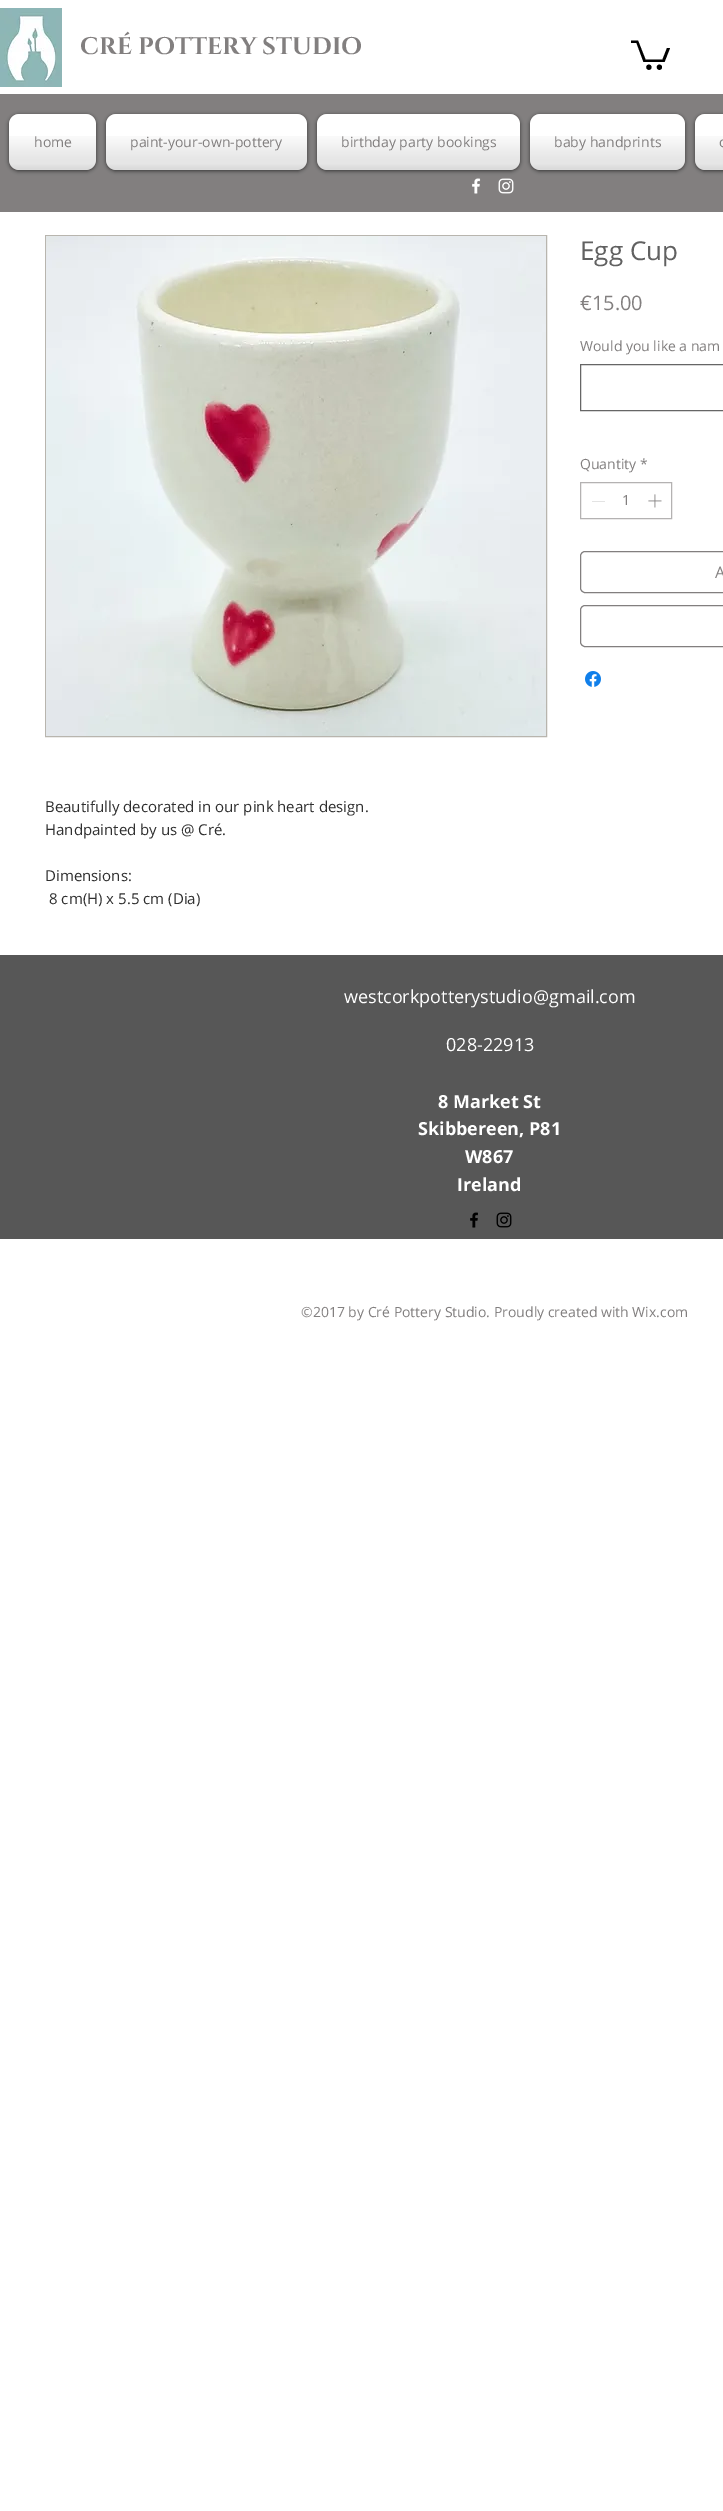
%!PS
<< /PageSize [723 2511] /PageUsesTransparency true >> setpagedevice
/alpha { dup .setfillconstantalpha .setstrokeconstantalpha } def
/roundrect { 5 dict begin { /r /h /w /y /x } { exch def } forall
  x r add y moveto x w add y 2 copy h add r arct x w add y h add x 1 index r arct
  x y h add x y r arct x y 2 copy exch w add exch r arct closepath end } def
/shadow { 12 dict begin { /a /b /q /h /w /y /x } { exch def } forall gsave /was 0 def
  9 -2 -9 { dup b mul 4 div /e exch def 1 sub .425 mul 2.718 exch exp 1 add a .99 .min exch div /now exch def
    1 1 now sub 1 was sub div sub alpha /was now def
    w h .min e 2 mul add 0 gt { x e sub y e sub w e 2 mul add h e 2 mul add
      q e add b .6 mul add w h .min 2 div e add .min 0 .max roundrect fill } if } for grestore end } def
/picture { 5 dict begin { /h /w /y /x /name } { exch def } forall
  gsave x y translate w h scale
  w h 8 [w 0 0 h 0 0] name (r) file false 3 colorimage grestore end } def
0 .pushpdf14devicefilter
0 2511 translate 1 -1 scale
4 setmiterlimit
1 setgray
0 0 723 2511 rectfill
(img1.rgb) 0 8 62 79 picture
/Cinzel-Bold [24 0 0 -24 0 0] selectfont
0.51 0.498 0.498 setrgbcolor
80 54 moveto (CRÉ POTTERY STUDIO) show
0 setgray
newpath 670 48 moveto 664.5 62 lineto 643.5 62 lineto 636.5 43 lineto 631 43 lineto 631 40.5 lineto 638 40.5 lineto 645.5 59.5 lineto 662.5 59.5 lineto 667 48 lineto fill
newpath 659.4 67.2 2.6 0 360 arc closepath fill
newpath 648.9 67.2 2.6 0 360 arc closepath fill
0.51 0.498 0.498 setrgbcolor
0 94 723 118 rectfill
0 setgray
9 115 87 56 10 2 0.6 shadow
1 setgray
9 114 87 56 10 roundrect fill
(img2.rgb) 9 114 87 9 picture
(img3.rgb) 9 136 87 34 picture
/OpenSans-Regular [14 0 0 -14 0 0] selectfont
0.51 0.498 0.498 setrgbcolor
34 147 moveto (home) show
0 setgray
106 115 201 56 10 2 0.6 shadow
1 setgray
106 114 201 56 10 roundrect fill
(img4.rgb) 106 114 201 9 picture
(img5.rgb) 106 136 201 34 picture
0.51 0.498 0.498 setrgbcolor
130 147 moveto (paint-your-own-pottery) show
0 setgray
317 115 203 56 10 2 0.6 shadow
1 setgray
317 114 203 56 10 roundrect fill
(img6.rgb) 317 114 203 9 picture
(img7.rgb) 317 136 203 34 picture
0.51 0.498 0.498 setrgbcolor
341 147 moveto (birthday party bookings) show
0 setgray
530 115 155 56 10 2 0.6 shadow
1 setgray
530 114 155 56 10 roundrect fill
(img8.rgb) 530 114 155 9 picture
(img9.rgb) 530 136 155 34 picture
0.51 0.498 0.498 setrgbcolor
554 147 moveto (baby handprints) show
0 setgray
695 115 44 56 10 2 0.6 shadow
1 setgray
695 114 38 56 10 roundrect fill
(img10.rgb) 695 114 9 9 picture
(img11.rgb) 695 136 28 34 picture
0.51 0.498 0.498 setrgbcolor
719 147 moveto (c) show
(img12.rgb) 472 178 9 16 picture
(img13.rgb) 498 178 16 16 picture
/OpenSans-Regular [26 0 0 -26 0 0] selectfont
0.38 setgray
580 260 moveto (Egg Cup) show
/OpenSans-Regular [20 0 0 -20 0 0] selectfont
0.51 0.498 0.498 setrgbcolor
580 310 moveto (€15.00) show
/OpenSans-Regular [14 0 0 -14 0 0] selectfont
580 351 moveto (Would you like a nam) show
0.4 setgray
580.5 364.5 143 46 rectstroke
0.51 0.498 0.498 setrgbcolor
580 469 moveto (Quantity) show
640 469 moveto (*) show
0.706 0.698 0.698 setrgbcolor
580.5 482.5 91 36 rectstroke
0.89 setgray
592 501 13 1 rectfill
0.51 0.498 0.498 setrgbcolor
622 505 moveto (1) show
(img14.rgb) 648 494 14 14 picture
580.5 551.5 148 41 4.5 roundrect stroke
/OpenSans-Regular [16 0 0 -16 0 0] selectfont
715 578 moveto (A) show
580.5 605.5 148 41 4.5 roundrect stroke
(img15.rgb) 585 671 16 16 picture
0.722 0.71 0.682 setrgbcolor
45.5 235.5 501 501 rectstroke
(img16.rgb) 46 236 500 500 picture
/OpenSans-Regular [15 0 0 -15 0 0] selectfont
0.188 setgray
45 812 moveto (Beautifully decorated in our pink heart design.) show
45 835 moveto (Handpainted by us @ Cré.) show
45 881 moveto (Dimensions:) show
49 904 moveto (8 cm\(H\) x 5.5 cm \(Dia\)) show
0.341 setgray
0 955 723 284 rectfill
/OpenSans-Regular [18 0 0 -18 0 0] selectfont
1 setgray
344 1003 moveto (westcorkpotterystudio@gmail.com) show
446 1051 moveto (028-22913) show
/OpenSans-Bold [18 0 0 -18 0 0] selectfont
438 1108 moveto (8 Market St) show
418 1135 moveto (Skibbereen, P81) show
465 1163 moveto (W867) show
457 1191 moveto (Ireland) show
(img17.rgb) 470 1212 8 16 picture
(img18.rgb) 496 1212 16 16 picture
/OpenSans-Regular [14 0 0 -14 0 0] selectfont
0.51 0.498 0.498 setrgbcolor
301 1317 moveto (©2017 by Cré Pottery Studio. Proudly created with Wix.com) show
.poppdf14devicefilter showpage
